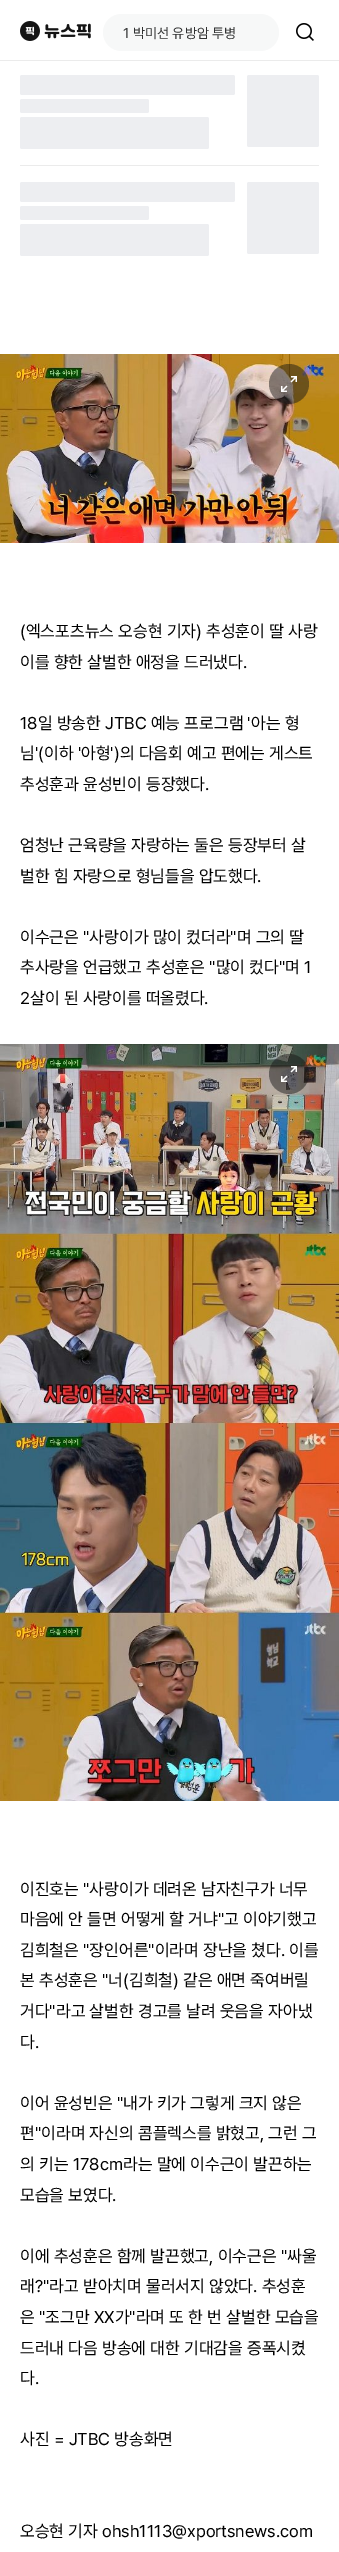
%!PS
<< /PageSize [339 2552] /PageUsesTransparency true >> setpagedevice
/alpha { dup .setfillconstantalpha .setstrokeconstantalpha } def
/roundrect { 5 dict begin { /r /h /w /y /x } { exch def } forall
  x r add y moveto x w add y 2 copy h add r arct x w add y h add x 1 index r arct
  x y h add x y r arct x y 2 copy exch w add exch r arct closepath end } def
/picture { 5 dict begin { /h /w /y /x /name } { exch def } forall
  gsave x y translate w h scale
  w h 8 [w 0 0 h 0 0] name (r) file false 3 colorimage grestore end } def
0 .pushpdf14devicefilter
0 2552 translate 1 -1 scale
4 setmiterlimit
1 setgray
0 0 339 2552 rectfill
0.922 setgray
0 60 339 1 rectfill
(img1.rgb) 20 21 71 20 picture
0.969 0.973 0.973 setrgbcolor
103 14 176 37 18.5 roundrect fill
/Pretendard-Regular [14 0 0 -14 0 0] selectfont
0.192 0.196 0.196 setrgbcolor
123 38 moveto (1 박미선 유방암 투병) show
(img2.rgb) 296 23 18 18 picture
0.929 0.933 0.945 setrgbcolor
20 75 215 20 2 roundrect fill
20 99 129 14 2 roundrect fill
20 117 189 32 2 roundrect fill
247 75 72 72 2 roundrect fill
0.922 setgray
20 165 299 1 rectfill
0.929 0.933 0.945 setrgbcolor
20 182 215 20 2 roundrect fill
20 206 129 14 2 roundrect fill
20 224 189 32 2 roundrect fill
247 182 72 72 2 roundrect fill
(img3.rgb) 0 354 339 189 picture
0.48 alpha
0.078 setgray
newpath 289 384 20 0 360 arc closepath fill
1 alpha
(img4.rgb) 281 376 16 16 picture
/Pretendard-Regular [17 0 0 -17 0 0] selectfont
0 setgray
20 637 moveto (\(엑스포츠뉴스 오승현 기자\) 추성훈이 딸 사랑) show
20 668 moveto (이를 향한 살벌한 애정을 드러냈다.) show
20 729 moveto (18일 방송한 JTBC 예능 프로그램 '아는 형) show
20 759 moveto (님'\(이하 '아형'\)의 다음회 예고 편에는 게스트) show
20 790 moveto (추성훈과 윤성빈이 등장했다.) show
20 851 moveto (엄청난 근육량을 자랑하는 둘은 등장부터 살) show
20 882 moveto (벌한 힘 자랑으로 형님들을 압도했다.) show
20 943 moveto (이수근은 "사랑이가 많이 컸더라"며 그의 딸) show
20 973 moveto (추사랑을 언급했고 추성훈은 "많이 컸다"며 1) show
20 1004 moveto (2살이 된 사랑이를 떠올렸다.) show
(img5.rgb) 0 1044 339 757 picture
0.48 alpha
0.078 setgray
newpath 289 1074 20 0 360 arc closepath fill
1 alpha
(img6.rgb) 281 1066 16 16 picture
0 setgray
20 1895 moveto (이진호는 "사랑이가 데려온 남자친구가 너무) show
20 1925 moveto (마음에 안 들면 어떻게 할 거냐"고 이야기했고) show
20 1956 moveto (김희철은 "장인어른"이라며 장난을 쳤다. 이를) show
20 1986 moveto (본 추성훈은 "너\(김희철\) 같은 애면 죽여버릴) show
20 2017 moveto (거다"라고 살벌한 경고를 날려 웃음을 자아냈) show
20 2048 moveto (다.) show
20 2109 moveto (이어 윤성빈은 "내가 키가 그렇게 크지 않은) show
20 2139 moveto (편"이라며 자신의 콤플렉스를 밝혔고, 그런 그) show
20 2170 moveto (의 키는 178cm라는 말에 이수근이 발끈하는) show
20 2201 moveto (모습을 보였다.) show
20 2262 moveto (이에 추성훈은 함께 발끈했고, 이수근은 "싸울) show
20 2292 moveto (래?"라고 받아치며 물러서지 않았다. 추성훈) show
20 2323 moveto (은 "조그만 XX가"라며 또 한 번 살벌한 모습을) show
20 2354 moveto (드러내 다음 방송에 대한 기대감을 증폭시켰) show
20 2384 moveto (다.) show
20 2445 moveto (사진 = JTBC 방송화면) show
20 2537 moveto (오승현 기자 ohsh1113@xportsnews.com) show
.poppdf14devicefilter showpage
